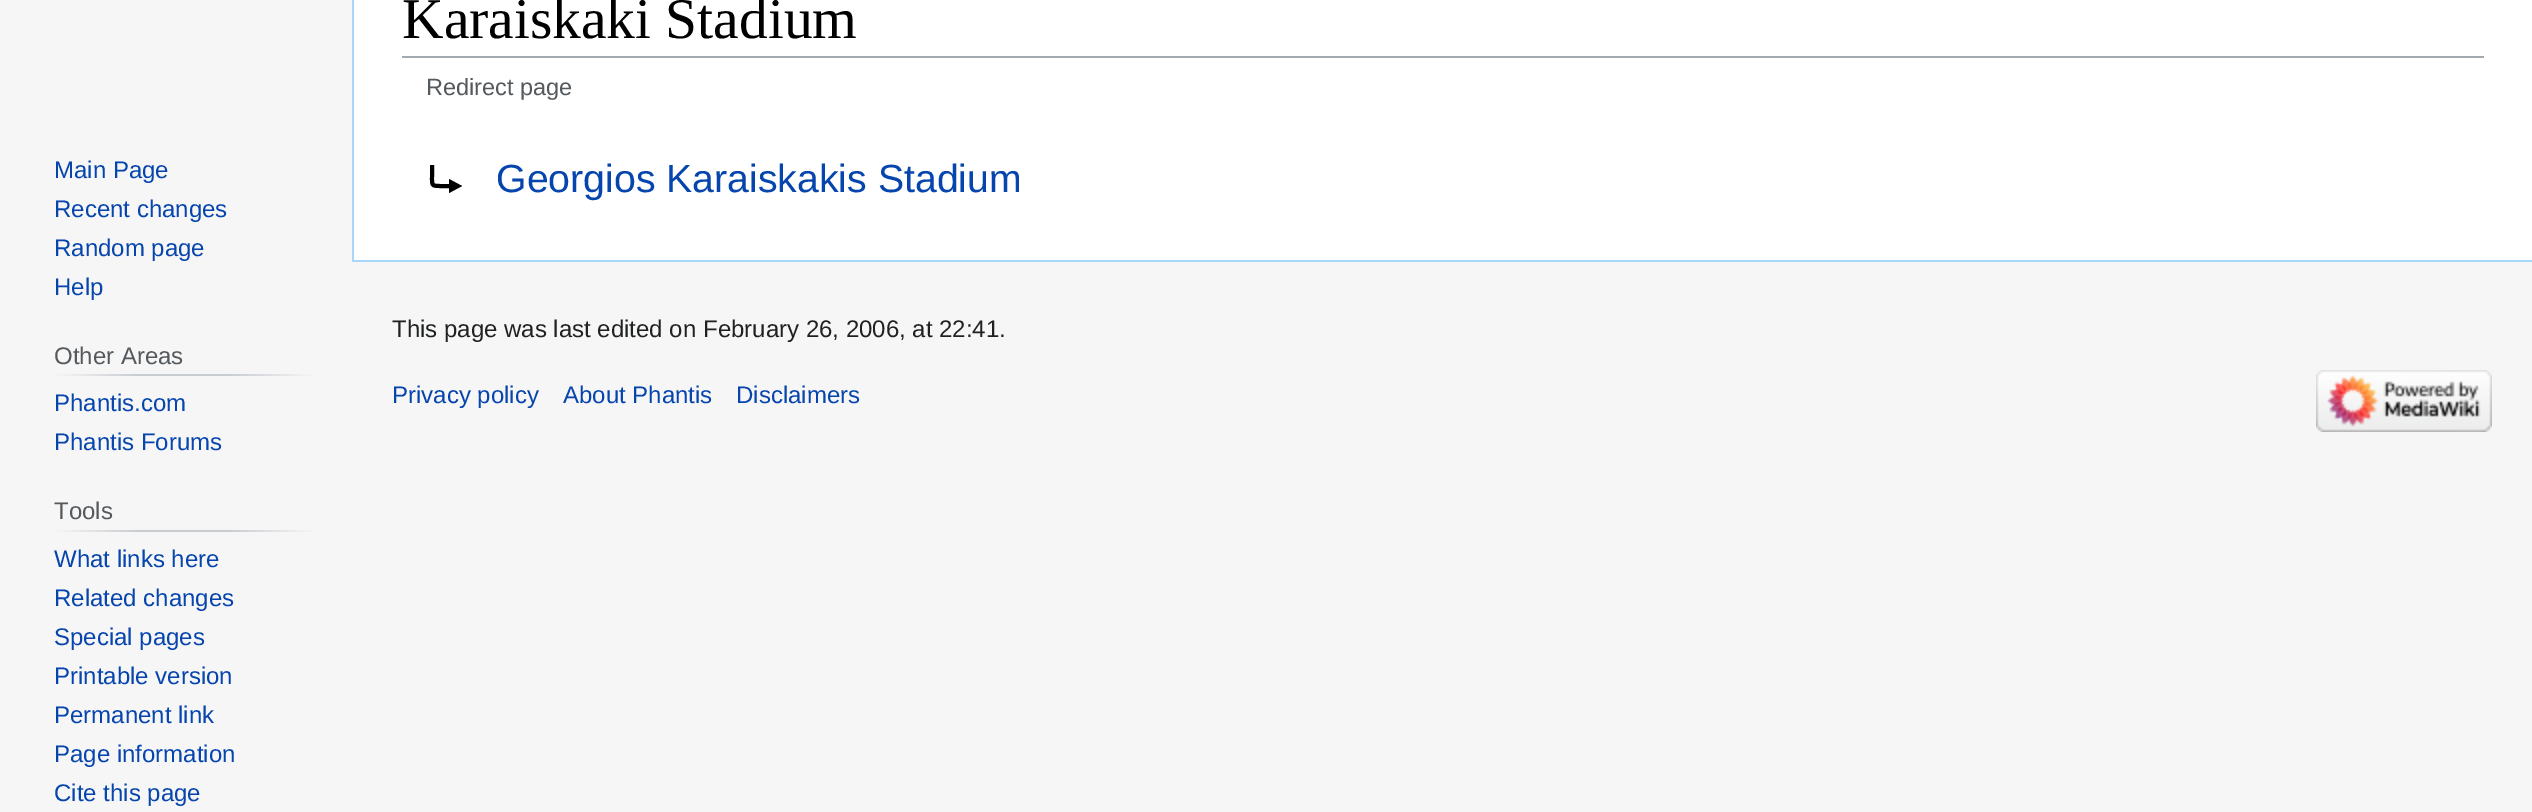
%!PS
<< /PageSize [2532 812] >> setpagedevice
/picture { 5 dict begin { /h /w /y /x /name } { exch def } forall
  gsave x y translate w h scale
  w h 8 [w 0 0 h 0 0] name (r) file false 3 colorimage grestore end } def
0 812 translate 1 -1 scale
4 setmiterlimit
0.965 setgray
0 0 2532 812 rectfill
1 setgray
354 0 2178 260 rectfill
0.655 0.843 0.976 setrgbcolor
352 260 2180 2 rectfill
352 0 2 262 rectfill
0.635 0.663 0.694 setrgbcolor
402 56 2082 2 rectfill
/LiberationSerif-Regular [57.5 0 0 -57.5 0 0] selectfont
0 setgray
402 38 moveto (Karaiskaki Stadium) show
/LiberationSans-Regular [23.5 0 0 -23.5 0 0] selectfont
0.329 0.349 0.365 setrgbcolor
426 95 moveto (Redirect page) show
/LiberationSans-Regular [39.25 0 0 -39.25 0 0] selectfont
0.024 0.271 0.678 setrgbcolor
496 192 moveto (Georgios Karaiskakis Stadium) show
0 setgray
4 setlinewidth
newpath 432 165 moveto 432 176.5 lineto 432 185 431.5 186 440 186 curveto 454 186 lineto stroke
newpath 449 179 moveto 449 193 lineto 462 186 lineto closepath fill
/LiberationSans-Regular [24 0 0 -24 0 0] selectfont
0.024 0.271 0.678 setrgbcolor
54 178 moveto (Main Page) show
54 217 moveto (Recent changes) show
54 256 moveto (Random page) show
54 295 moveto (Help) show
gsave newpath 54 374 moveto 316 374 lineto 316 376 lineto 54 376 lineto closepath clip newpath
<< /ShadingType 2 /ColorSpace /DeviceRGB /Coords [54 375 316 375] /Extend [true true] /Function << /FunctionType 3 /Domain [0 1] /Functions [<< /FunctionType 2 /Domain [0 1] /C0 [0.965 0.965 0.965] /C1 [0.784 0.8 0.82] /N 1 >> << /FunctionType 2 /Domain [0 1] /C0 [0.784 0.8 0.82] /C1 [0.784 0.8 0.82] /N 1 >> << /FunctionType 2 /Domain [0 1] /C0 [0.784 0.8 0.82] /C1 [0.965 0.965 0.965] /N 1 >>] /Bounds [0.33 0.66] /Encode [0 1 0 1 0 1] >> >> shfill grestore
0.329 0.349 0.365 setrgbcolor
54 364 moveto (Other Areas) show
0.024 0.271 0.678 setrgbcolor
54 411 moveto (Phantis.com) show
54 450 moveto (Phantis Forums) show
gsave newpath 54 530 moveto 316 530 lineto 316 532 lineto 54 532 lineto closepath clip newpath
<< /ShadingType 2 /ColorSpace /DeviceRGB /Coords [54 531 316 531] /Extend [true true] /Function << /FunctionType 3 /Domain [0 1] /Functions [<< /FunctionType 2 /Domain [0 1] /C0 [0.965 0.965 0.965] /C1 [0.784 0.8 0.82] /N 1 >> << /FunctionType 2 /Domain [0 1] /C0 [0.784 0.8 0.82] /C1 [0.784 0.8 0.82] /N 1 >> << /FunctionType 2 /Domain [0 1] /C0 [0.784 0.8 0.82] /C1 [0.965 0.965 0.965] /N 1 >>] /Bounds [0.33 0.66] /Encode [0 1 0 1 0 1] >> >> shfill grestore
0.329 0.349 0.365 setrgbcolor
54 519 moveto (Tools) show
0.024 0.271 0.678 setrgbcolor
54 567 moveto (What links here) show
54 606 moveto (Related changes) show
54 645 moveto (Special pages) show
54 684 moveto (Printable version) show
54 723 moveto (Permanent link) show
54 762 moveto (Page information) show
54 801 moveto (Cite this page) show
0.125 0.129 0.133 setrgbcolor
392 337 moveto (This page was last edited on February 26, 2006, at 22:41.) show
0.024 0.271 0.678 setrgbcolor
392 403 moveto (Privacy policy) show
563 403 moveto (About Phantis) show
736 403 moveto (Disclaimers) show
(img1.rgb) 2316 370 176 62 picture
showpage
